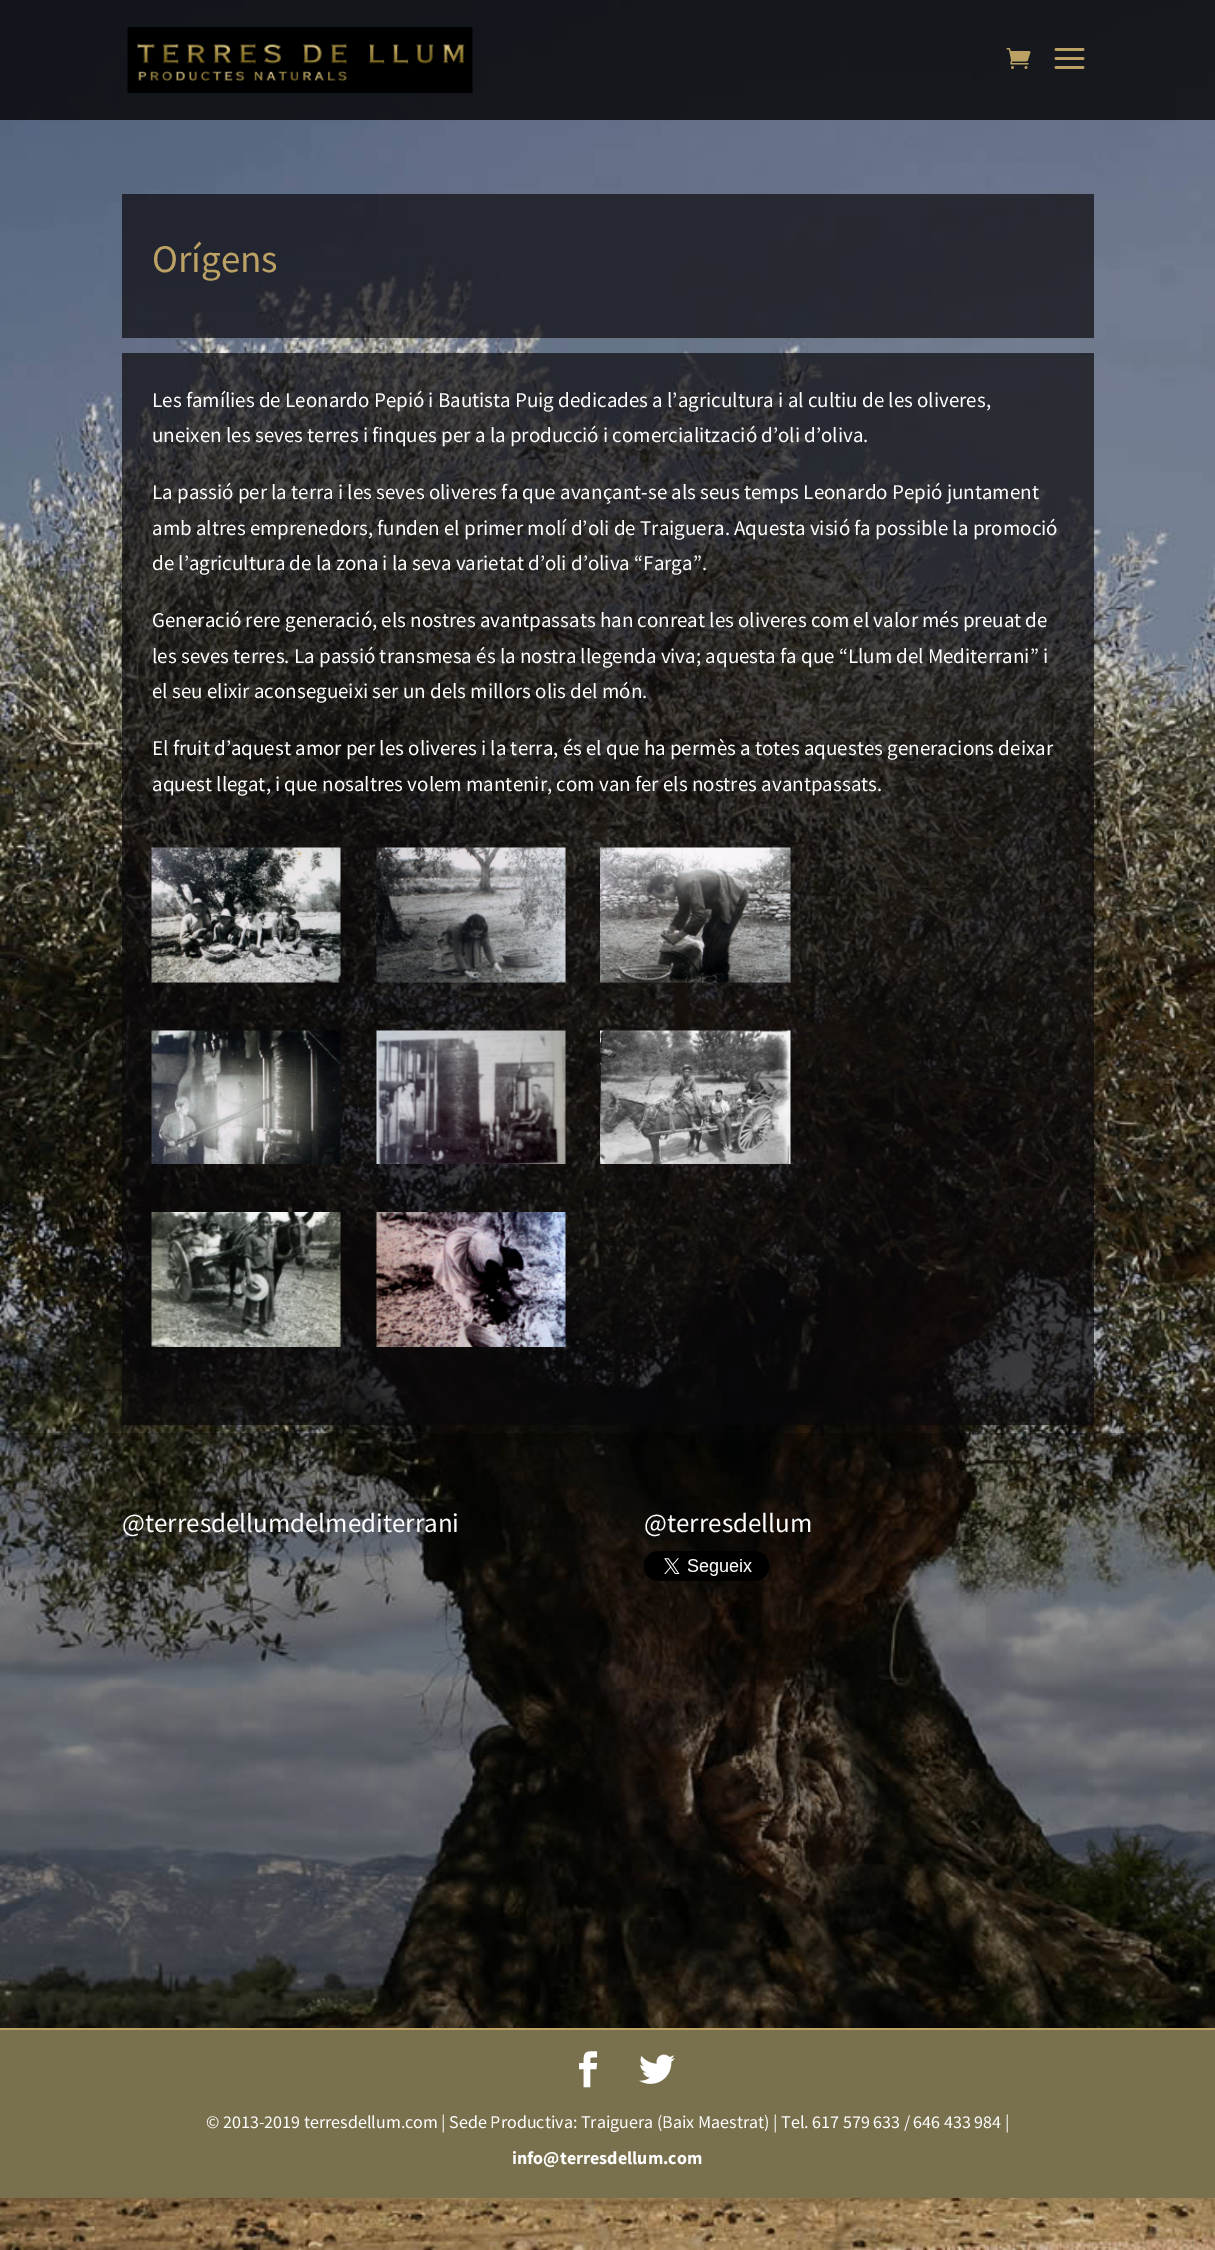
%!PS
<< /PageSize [1215 2250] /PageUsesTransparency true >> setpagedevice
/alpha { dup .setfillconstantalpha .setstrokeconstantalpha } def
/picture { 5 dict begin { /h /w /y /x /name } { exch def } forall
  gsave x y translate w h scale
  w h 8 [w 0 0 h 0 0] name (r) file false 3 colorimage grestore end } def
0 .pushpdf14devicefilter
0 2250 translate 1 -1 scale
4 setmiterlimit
1 setgray
0 0 1215 2250 rectfill
(img1.rgb) 0 0 1215 2250 picture
0.79 alpha
0 setgray
0 0 1215 120 rectfill
1 alpha
(img2.rgb) 127 27 346 66 picture
(img3.rgb) 1006 48 25 21 picture
(img4.rgb) 1054 48 31 21 picture
0.69 alpha
0.035 0.027 0.039 setrgbcolor
122 194 972 144 rectfill
/SourceSansPro-Regular [39 0 0 -39 0 0] selectfont
1 alpha
0.737 0.631 0.396 setrgbcolor
152 272 moveto (Orígens) show
0.69 alpha
0.035 0.027 0.039 setrgbcolor
122 353 972 1072 rectfill
/SourceSansPro-Regular [21 0 0 -21 0 0] selectfont
1 alpha
1 setgray
152 407 moveto (Les famílies de Leonardo Pepió i Bautista Puig dedicades a l’agricultura i al cultiu de les oliveres,) show
152 442 moveto (uneixen les seves terres i finques per a la producció i comercialització d’oli d’oliva.) show
152 499 moveto (La passió per la terra i les seves oliveres fa que avançant-se als seus temps Leonardo Pepió juntament) show
152 535 moveto (amb altres emprenedors, funden el primer molí d’oli de Traiguera. Aquesta visió fa possible la promoció) show
152 570 moveto (de l’agricultura de la zona i la seva varietat d’oli d’oliva “Farga”.) show
152 627 moveto (Generació rere generació, els nostres avantpassats han conreat les oliveres com el valor més preuat de) show
152 663 moveto (les seves terres. La passió transmesa és la nostra llegenda viva; aquesta fa que “Llum del Mediterrani” i) show
152 698 moveto (el seu elixir aconsegueixi ser un dels millors olis del món.) show
152 755 moveto (El fruit d’aquest amor per les oliveres i la terra, és el que ha permès a totes aquestes generacions deixar) show
152 791 moveto (aquest llegat, i que nosaltres volem mantenir, com van fer els nostres avantpassats.) show
(img5.rgb) 151 847 190 136 picture
(img6.rgb) 376 847 190 136 picture
(img7.rgb) 600 847 191 136 picture
(img8.rgb) 151 1030 190 134 picture
(img9.rgb) 376 1030 190 134 picture
(img10.rgb) 600 1030 191 134 picture
(img11.rgb) 151 1212 190 135 picture
(img12.rgb) 376 1212 190 135 picture
0.3 alpha
0 setgray
0 1433 1215 595 rectfill
/SourceSansPro-Regular [27 0 0 -27 0 0] selectfont
1 alpha
1 setgray
122 1532 moveto (@terresdellumdelmediterrani) show
644 1532 moveto (@terresdellum) show
(img13.rgb) 644 1551 126 30 picture
0.475 0.443 0.302 setrgbcolor
0 2030 1215 168 rectfill
0.737 0.631 0.396 setrgbcolor
0 2028 1215 2 rectfill
(img14.rgb) 579 2051 19 37 picture
(img15.rgb) 639 2054 36 30 picture
/SourceSansPro-Regular [18 0 0 -18 0 0] selectfont
1 setgray
206 2128 moveto (© 2013-2019 terresdellum.com | Sede Productiva: Traiguera \(Baix Maestrat\) | Tel. 617 579 633 / 646 433 984 |) show
/SourceSansPro-Bold [18 0 0 -18 0 0] selectfont
512 2164 moveto (info@terresdellum.com) show
.poppdf14devicefilter showpage
